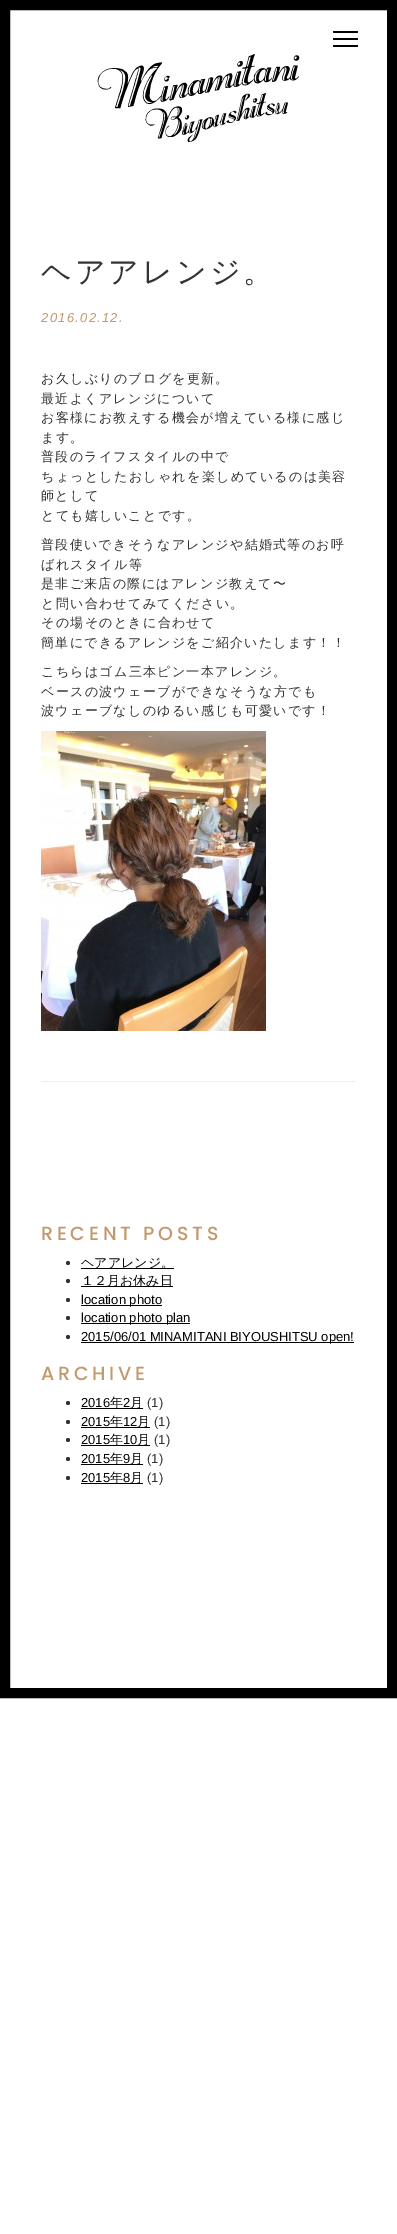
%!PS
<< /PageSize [397 2234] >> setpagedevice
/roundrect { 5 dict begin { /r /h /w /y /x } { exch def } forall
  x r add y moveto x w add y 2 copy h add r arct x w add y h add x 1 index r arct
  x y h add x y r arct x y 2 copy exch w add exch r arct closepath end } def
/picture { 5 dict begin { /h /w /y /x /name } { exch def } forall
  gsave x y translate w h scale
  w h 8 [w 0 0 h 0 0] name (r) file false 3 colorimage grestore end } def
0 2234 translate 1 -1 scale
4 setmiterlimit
1 setgray
0 0 397 2234 rectfill
0 setgray
10 setlinewidth
5 5 387 1688 rectstroke
333 31 25 2 1 roundrect fill
333 38 25 2 1 roundrect fill
333 45 25 2 1 roundrect fill
(img1.rgb) 97 54 203 88 picture
0.933 setgray
41 1081 315 1 rectfill
/WenQuanYiZenHei-Medium [30 0 0 -30 0 0] selectfont
0.2 setgray
41 282 moveto 3 0 (ヘアアレンジ。) ashow
/LiberationSans-Italic [13 0 0 -13 0 0] selectfont
0.765 0.6 0.42 setrgbcolor
41 322 moveto 1.3 0 (2016.02.12.) ashow
/WenQuanYiZenHei-Medium [13 0 0 -13 0 0] selectfont
0.2 setgray
41 383 moveto 1.3 0 (お久しぶりのブログを更新。) ashow
41 403 moveto 1.3 0 (最近よくアレンジについて) ashow
41 422 moveto 1.3 0 (お客様にお教えする機会が増えている様に感じ) ashow
41 442 moveto 1.3 0 (ます。) ashow
41 461 moveto 1.3 0 (普段のライフスタイルの中で) ashow
41 481 moveto 1.3 0 (ちょっとしたおしゃれを楽しめているのは美容) ashow
41 500 moveto 1.3 0 (師として) ashow
41 520 moveto 1.3 0 (とても嬉しいことです。) ashow
41 549 moveto 1.3 0 (普段使いできそうなアレンジや結婚式等のお呼) ashow
41 569 moveto 1.3 0 (ばれスタイル等) ashow
41 588 moveto 1.3 0 (是非ご来店の際にはアレンジ教えて〜) ashow
41 608 moveto 1.3 0 (と問い合わせてみてください。) ashow
41 627 moveto 1.3 0 (その場そのときに合わせて) ashow
41 647 moveto 1.3 0 (簡単にできるアレンジをご紹介いたします！！) ashow
41 676 moveto 1.3 0 (こちらはゴム三本ピン一本アレンジ。) ashow
41 696 moveto 1.3 0 (ベースの波ウェーブができなそうな方でも) ashow
41 715 moveto 1.3 0 (波ウェーブなしのゆるい感じも可愛いです！) ashow
(img2.rgb) 41 731 225 300 picture
/Poppins-Medium [19 0 0 -19 0 0] selectfont
0.765 0.6 0.42 setrgbcolor
41 1240 moveto 3.75 0 (RECENT POSTS) ashow
0.2 setgray
newpath 68 1263 2 0 360 arc closepath fill
0 setgray
81 1268 93 1 rectfill
/WenQuanYiZenHei-Medium [13 0 0 -13 0 0] selectfont
81 1267 moveto (ヘアアレンジ。) show
0.2 setgray
newpath 68 1281 2 0 360 arc closepath fill
0 setgray
81 1286 92 1 rectfill
81 1285 moveto (１２月お休み日) show
0.2 setgray
newpath 68 1300 2 0 360 arc closepath fill
0 setgray
81 1305 81 1 rectfill
/LiberationSans-Regular [13 0 0 -13 0 0] selectfont
81 1304 moveto (location photo) show
0.2 setgray
newpath 68 1318 2 0 360 arc closepath fill
0 setgray
81 1323 109 1 rectfill
81 1322 moveto (location photo plan) show
0.2 setgray
newpath 68 1337 2 0 360 arc closepath fill
0 setgray
81 1342 273 1 rectfill
81 1341 moveto (2015/06/01 MINAMITANI BIYOUSHITSU open!) show
/Poppins-Medium [19 0 0 -19 0 0] selectfont
0.765 0.6 0.42 setrgbcolor
41 1380 moveto 3.75 0 (ARCHIVE) ashow
0.2 setgray
newpath 68 1403 2 0 360 arc closepath fill
/LiberationSans-Regular [13 0 0 -13 0 0] selectfont
0 setgray
81 1407 moveto (2016) show
81 1408 62 1 rectfill
/WenQuanYiZenHei-Medium [13 0 0 -13 0 0] selectfont
110 1407 moveto (年) show
/LiberationSans-Regular [13 0 0 -13 0 0] selectfont
123 1407 moveto (2) show
/WenQuanYiZenHei-Medium [13 0 0 -13 0 0] selectfont
130 1407 moveto (月) show
/LiberationSans-Regular [13 0 0 -13 0 0] selectfont
0.2 setgray
147 1407 moveto (\(1\)) show
newpath 68 1422 2 0 360 arc closepath fill
0 setgray
81 1426 moveto (2015) show
81 1427 69 1 rectfill
/WenQuanYiZenHei-Medium [13 0 0 -13 0 0] selectfont
110 1426 moveto (年) show
/LiberationSans-Regular [13 0 0 -13 0 0] selectfont
123 1426 moveto (12) show
/WenQuanYiZenHei-Medium [13 0 0 -13 0 0] selectfont
137 1426 moveto (月) show
/LiberationSans-Regular [13 0 0 -13 0 0] selectfont
0.2 setgray
154 1426 moveto (\(1\)) show
newpath 68 1440 2 0 360 arc closepath fill
0 setgray
81 1444 moveto (2015) show
81 1445 69 1 rectfill
/WenQuanYiZenHei-Medium [13 0 0 -13 0 0] selectfont
110 1444 moveto (年) show
/LiberationSans-Regular [13 0 0 -13 0 0] selectfont
123 1444 moveto (10) show
/WenQuanYiZenHei-Medium [13 0 0 -13 0 0] selectfont
137 1444 moveto (月) show
/LiberationSans-Regular [13 0 0 -13 0 0] selectfont
0.2 setgray
154 1444 moveto (\(1\)) show
newpath 68 1459 2 0 360 arc closepath fill
0 setgray
81 1463 moveto (2015) show
81 1464 62 1 rectfill
/WenQuanYiZenHei-Medium [13 0 0 -13 0 0] selectfont
110 1463 moveto (年) show
/LiberationSans-Regular [13 0 0 -13 0 0] selectfont
123 1463 moveto (9) show
/WenQuanYiZenHei-Medium [13 0 0 -13 0 0] selectfont
130 1463 moveto (月) show
/LiberationSans-Regular [13 0 0 -13 0 0] selectfont
0.2 setgray
147 1463 moveto (\(1\)) show
newpath 68 1478 2 0 360 arc closepath fill
0 setgray
81 1482 moveto (2015) show
81 1483 62 1 rectfill
/WenQuanYiZenHei-Medium [13 0 0 -13 0 0] selectfont
110 1482 moveto (年) show
/LiberationSans-Regular [13 0 0 -13 0 0] selectfont
123 1482 moveto (8) show
/WenQuanYiZenHei-Medium [13 0 0 -13 0 0] selectfont
130 1482 moveto (月) show
/LiberationSans-Regular [13 0 0 -13 0 0] selectfont
0.2 setgray
147 1482 moveto (\(1\)) show
showpage
